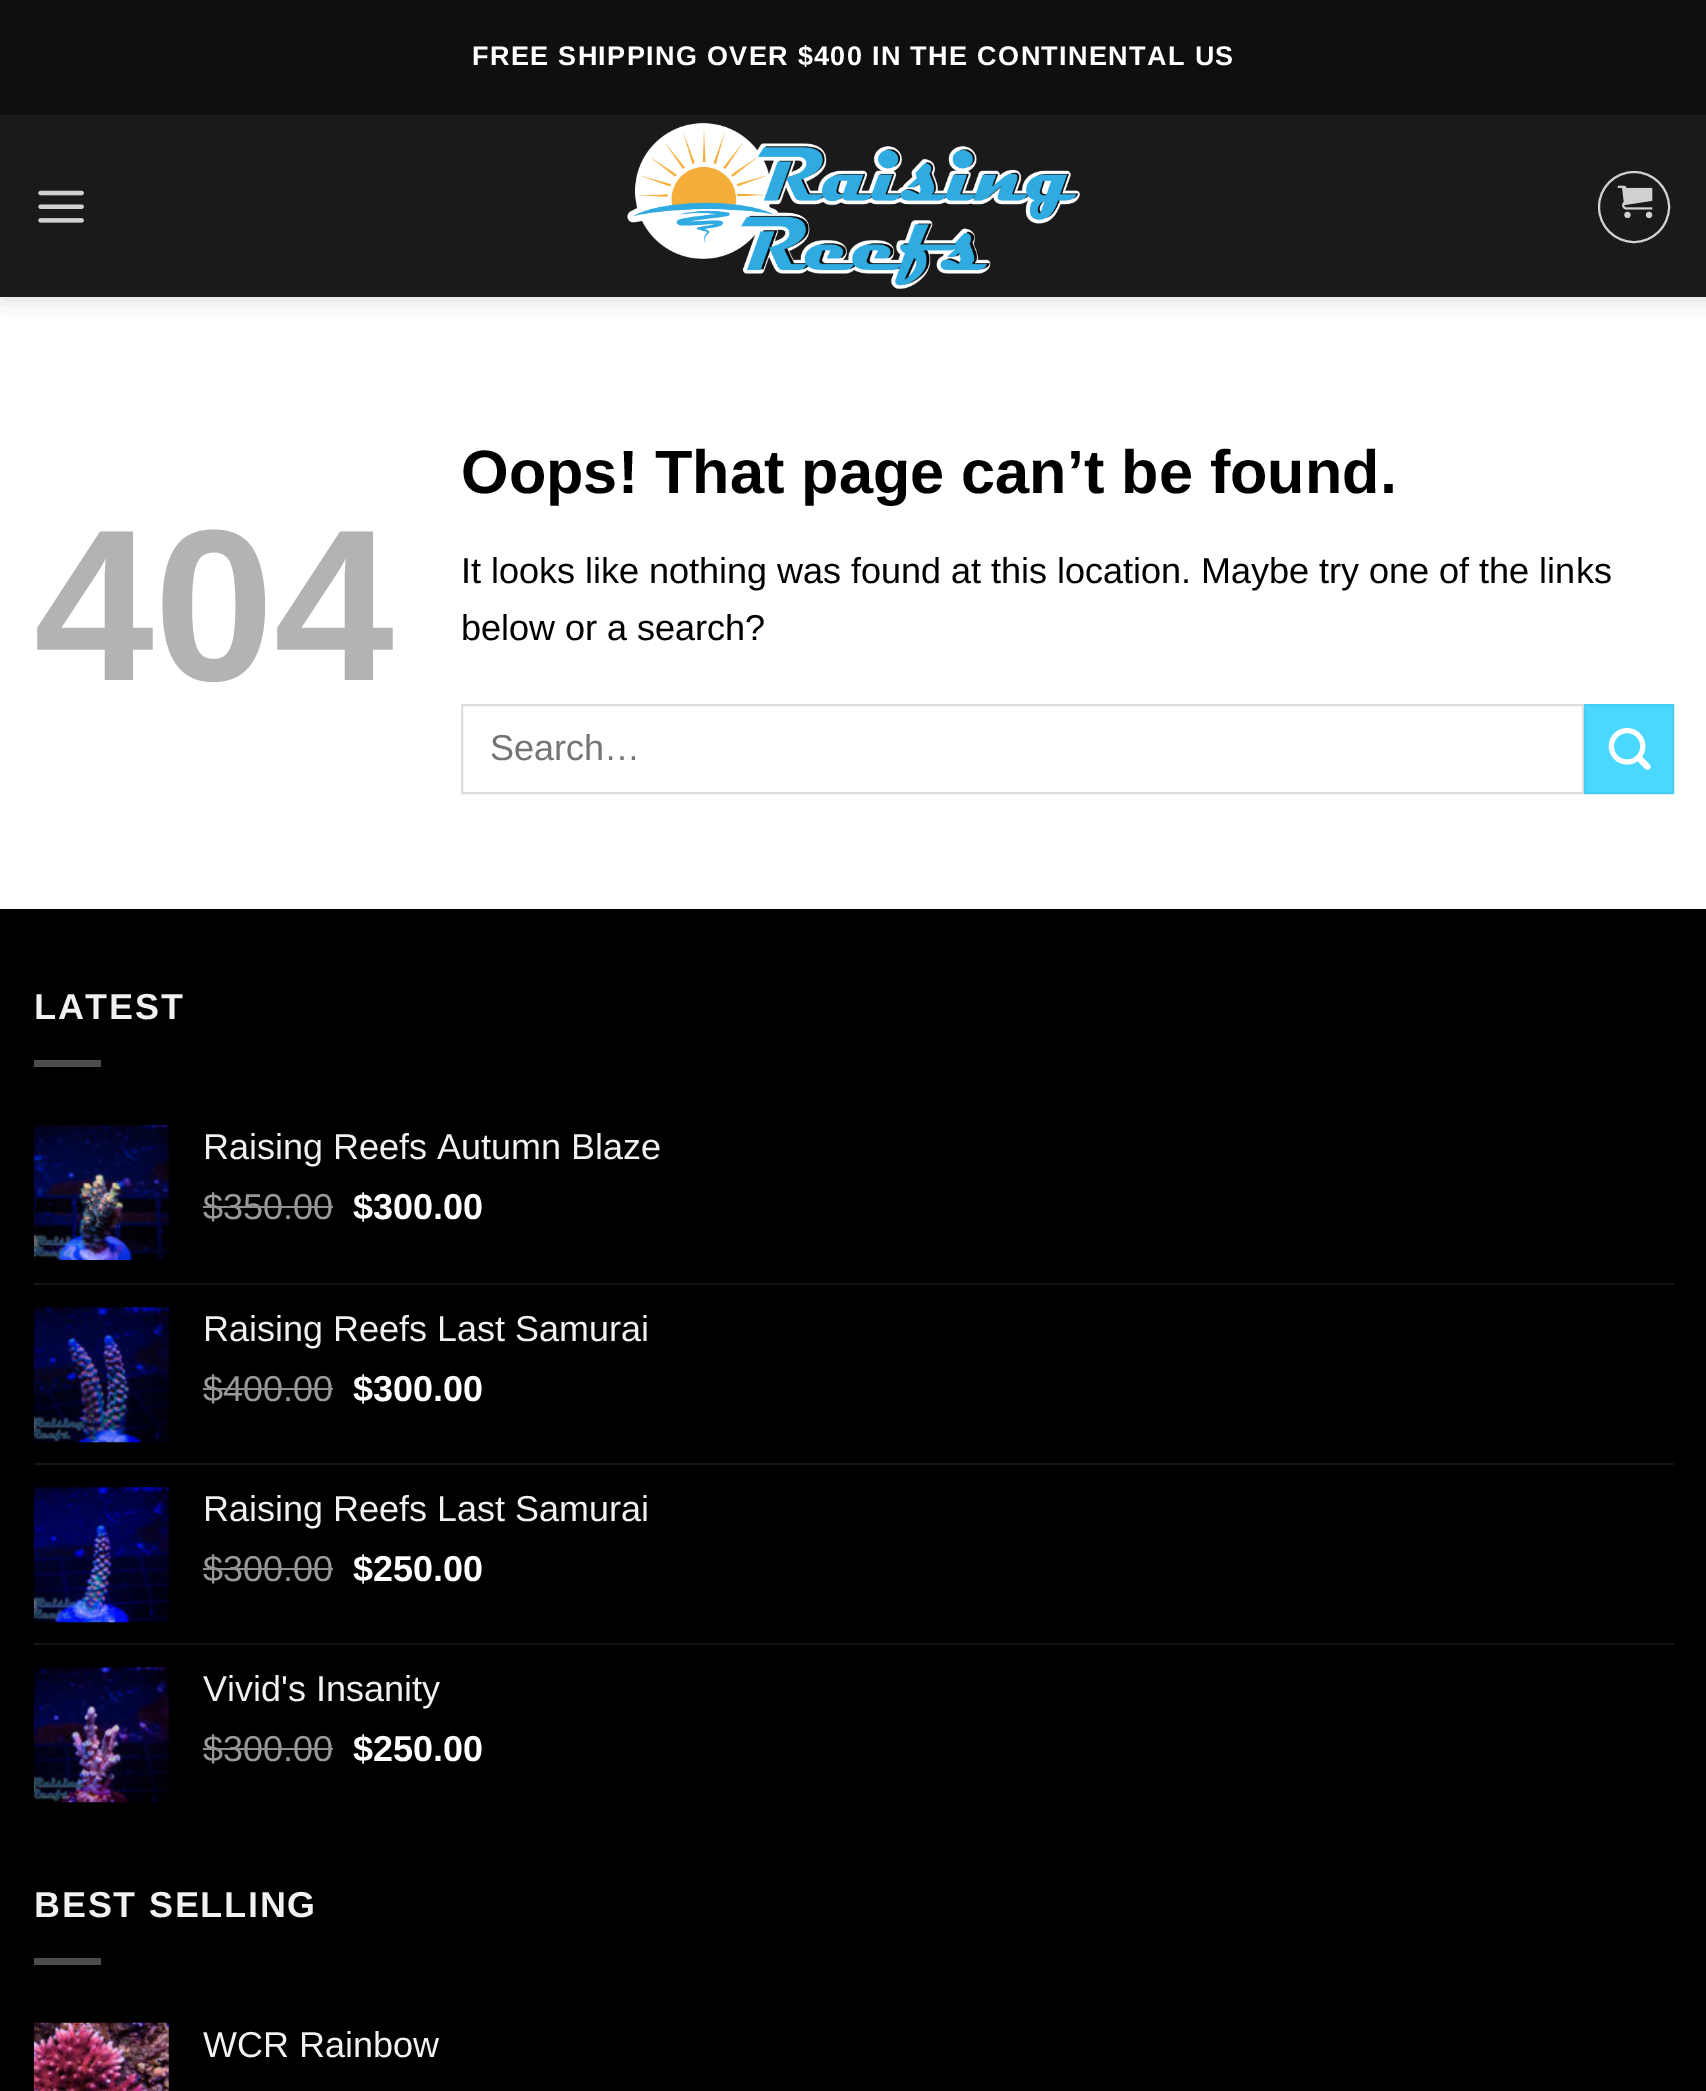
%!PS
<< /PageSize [1706 2091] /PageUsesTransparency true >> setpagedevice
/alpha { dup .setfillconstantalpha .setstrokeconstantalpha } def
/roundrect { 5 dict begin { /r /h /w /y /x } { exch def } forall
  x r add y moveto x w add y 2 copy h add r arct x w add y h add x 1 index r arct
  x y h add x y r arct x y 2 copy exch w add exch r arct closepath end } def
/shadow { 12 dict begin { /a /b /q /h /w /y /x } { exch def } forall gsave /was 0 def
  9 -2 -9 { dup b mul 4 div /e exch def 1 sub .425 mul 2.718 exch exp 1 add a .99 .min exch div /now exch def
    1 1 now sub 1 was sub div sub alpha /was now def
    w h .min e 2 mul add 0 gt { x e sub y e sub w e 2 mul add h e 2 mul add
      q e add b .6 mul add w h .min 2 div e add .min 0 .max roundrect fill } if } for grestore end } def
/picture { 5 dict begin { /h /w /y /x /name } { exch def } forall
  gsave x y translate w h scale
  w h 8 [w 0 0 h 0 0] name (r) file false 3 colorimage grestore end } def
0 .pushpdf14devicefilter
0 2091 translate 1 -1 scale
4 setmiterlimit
1 setgray
0 0 1706 2091 rectfill
0 setgray
2 2 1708 297 0 11 0.15 shadow
0.059 setgray
0 0 1706 115 rectfill
/LiberationSans-Bold [27 0 0 -27 0 0] selectfont
1 setgray
472 65 moveto 1.35 0 (FREE SHIPPING OVER $400 IN THE CONTINENTAL US) ashow
0.102 setgray
0 115 1706 182 rectfill
(img1.rgb) 38 190 46 33 picture
(img2.rgb) 627 122 453 167 picture
0.82 setgray
2 setlinewidth
newpath 1634 207 35 0 360 arc closepath stroke
(img3.rgb) 1617 185 36 34 picture
/LiberationSans-Bold [216 0 0 -216 0 0] selectfont
0.702 setgray
34 680 moveto (404) show
/LiberationSans-Bold [61.25 0 0 -61.25 0 0] selectfont
0 setgray
461 493 moveto (Oops! That page can’t be found.) show
/LiberationSans-Regular [36 0 0 -36 0 0] selectfont
461 583 moveto (It looks like nothing was found at this location. Maybe try one of the links) show
461 640 moveto (below or a search?) show
0.867 setgray
462 705 1121 88 rectstroke
0.459 setgray
490 760 moveto (Search…) show
0.29 0.847 1 setrgbcolor
newpath 1585 705 moveto 1673 705 lineto 1673 793 lineto 1585 793 lineto closepath gsave fill grestore
0.275 0.804 0.949 setrgbcolor
stroke
(img4.rgb) 1608 728 43 42 picture
0 setgray
0 909 1706 1182 rectfill
/LiberationSans-Bold [36 0 0 -36 0 0] selectfont
0.945 setgray
34 1019 moveto 1.75 0 (LATEST) ashow
0.302 setgray
34 1060 67 7 rectfill
(img5.rgb) 33 1125 136 135 picture
/LiberationSans-Regular [36 0 0 -36 0 0] selectfont
0.945 setgray
203 1159 moveto (Raising Reefs Autumn Blaze) show
0.6 setgray
203 1219 moveto ($350.00) show
0.569 setgray
203 1206 130 2 rectfill
/LiberationSans-Bold [36 0 0 -36 0 0] selectfont
1 setgray
353 1219 moveto ($300.00) show
0.078 setgray
34 1283 1640 2 rectfill
(img6.rgb) 33 1307 136 136 picture
/LiberationSans-Regular [36 0 0 -36 0 0] selectfont
0.945 setgray
203 1341 moveto (Raising Reefs Last Samurai) show
0.6 setgray
203 1401 moveto ($400.00) show
0.569 setgray
203 1388 130 2 rectfill
/LiberationSans-Bold [36 0 0 -36 0 0] selectfont
1 setgray
353 1401 moveto ($300.00) show
0.078 setgray
34 1463 1640 2 rectfill
(img7.rgb) 33 1487 136 136 picture
/LiberationSans-Regular [36 0 0 -36 0 0] selectfont
0.945 setgray
203 1521 moveto (Raising Reefs Last Samurai) show
0.6 setgray
203 1581 moveto ($300.00) show
0.569 setgray
203 1568 130 2 rectfill
/LiberationSans-Bold [36 0 0 -36 0 0] selectfont
1 setgray
353 1581 moveto ($250.00) show
0.078 setgray
34 1643 1640 2 rectfill
(img8.rgb) 33 1667 136 136 picture
/LiberationSans-Regular [36 0 0 -36 0 0] selectfont
0.945 setgray
203 1701 moveto (Vivid's Insanity) show
0.6 setgray
203 1761 moveto ($300.00) show
0.569 setgray
203 1748 130 2 rectfill
/LiberationSans-Bold [36 0 0 -36 0 0] selectfont
1 setgray
353 1761 moveto ($250.00) show
0.945 setgray
34 1917 moveto 1.75 0 (BEST SELLING) ashow
0.302 setgray
34 1958 67 7 rectfill
(img9.rgb) 33 2022 136 69 picture
/LiberationSans-Regular [36 0 0 -36 0 0] selectfont
0.945 setgray
203 2057 moveto (WCR Rainbow) show
.poppdf14devicefilter showpage
